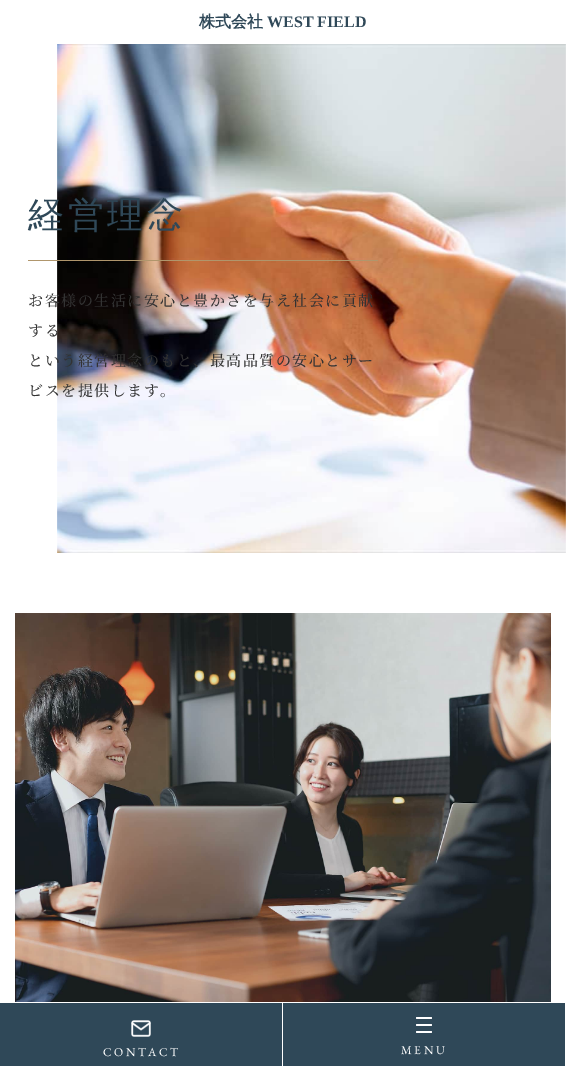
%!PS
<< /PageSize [566 1066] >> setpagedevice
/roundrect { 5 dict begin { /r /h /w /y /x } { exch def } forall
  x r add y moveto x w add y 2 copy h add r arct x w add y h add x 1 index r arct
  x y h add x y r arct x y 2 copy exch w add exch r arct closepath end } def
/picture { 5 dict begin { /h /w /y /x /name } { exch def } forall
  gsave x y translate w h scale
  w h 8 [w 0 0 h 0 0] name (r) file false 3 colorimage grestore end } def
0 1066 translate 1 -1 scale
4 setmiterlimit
1 setgray
0 0 566 1066 rectfill
/WenQuanYiZenHei-Bold [16 0 0 -16 0 0] selectfont
0.184 0.282 0.345 setrgbcolor
199 27 moveto (株式会社) show
/LiberationSerif-Bold [16 0 0 -16 0 0] selectfont
267 27 moveto (WEST FIELD) show
0 1003 282 63 rectfill
(img1.rgb) 131 1020 20 17 picture
/EBGaramond-Regular [12 0 0 -12 0 0] selectfont
1 setgray
103 1056 moveto 2.5 0 (CONTACT) ashow
0.184 0.282 0.345 setrgbcolor
283 1003 282 63 rectfill
1 setgray
416 1017 16 2 1 roundrect fill
416 1024 16 2 1 roundrect fill
416 1031 16 2 1 roundrect fill
401 1054 moveto 2.5 0 (MENU) ashow
(img2.rgb) 57 44 509 509 picture
/WenQuanYiZenHei-Medium [36 0 0 -36 0 0] selectfont
0.184 0.282 0.345 setrgbcolor
28 227 moveto 3.5 0 (経営理念) ashow
0.69 0.588 0.424 setrgbcolor
28 260 350 1 rectfill
/NotoSerifJP-Medium [15 0 0 -15 0 0] selectfont
0.2 setgray
28 306 moveto 1.5 0 (お客様の生活に安心と豊かさを与え社会に貢献) ashow
28 336 moveto 1.5 0 (する) ashow
28 366 moveto 1.5 0 (という経営理念のもと、最高品質の安心とサー) ashow
28 396 moveto 1.5 0 (ビスを提供します。) ashow
(img3.rgb) 15 613 536 389 picture
showpage
